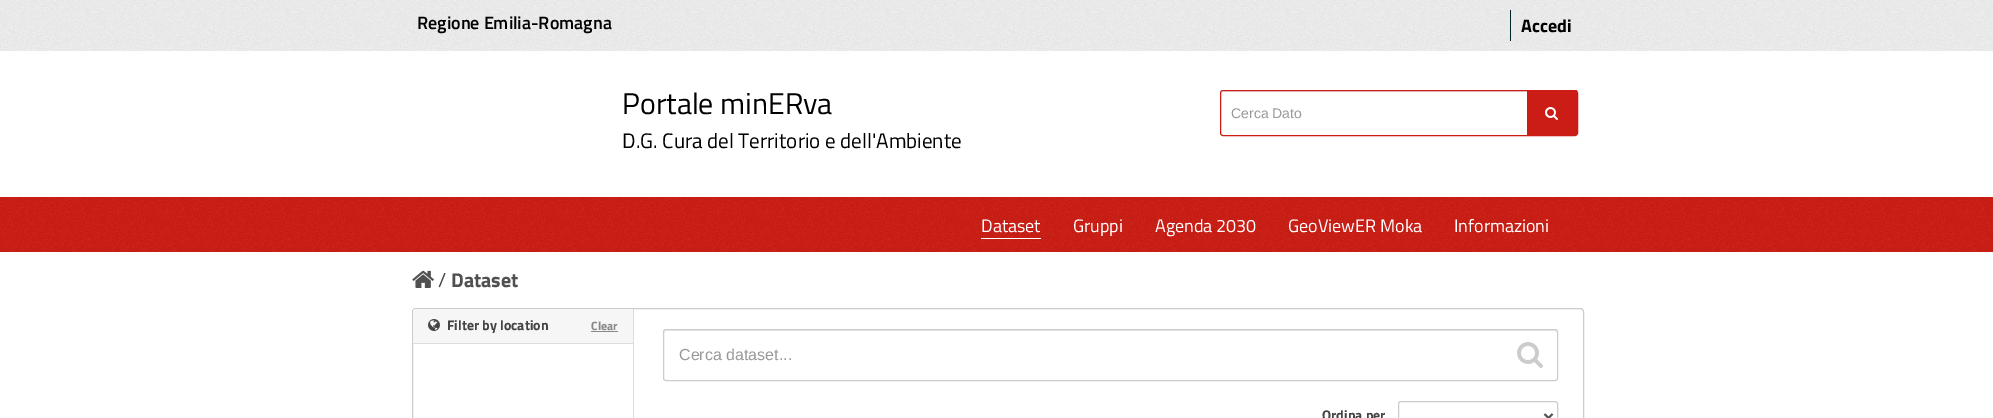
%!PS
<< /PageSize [1993 418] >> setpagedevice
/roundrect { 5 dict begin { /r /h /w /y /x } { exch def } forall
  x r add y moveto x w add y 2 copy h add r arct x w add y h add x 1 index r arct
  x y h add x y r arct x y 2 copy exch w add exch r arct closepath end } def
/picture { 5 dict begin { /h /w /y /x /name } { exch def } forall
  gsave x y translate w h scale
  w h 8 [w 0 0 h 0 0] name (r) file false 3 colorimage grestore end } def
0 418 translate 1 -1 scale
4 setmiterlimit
1 setgray
0 0 1993 418 rectfill
0.933 setgray
0 0 1993 51 rectfill
(img1.rgb) 0 0 1993 51 picture
/TitilliumWeb-SemiBold [18 0 0 -18 0 0] selectfont
0 setgray
417 29 moveto (Regione Emilia-Romagna) show
0 0.137 0.18 setrgbcolor
1510 10 1 31 rectfill
/TitilliumWeb-Bold [18 0 0 -18 0 0] selectfont
0 setgray
1521 32 moveto (Accedi) show
/TitilliumWeb-Regular [30 0 0 -30 0 0] selectfont
622 114 moveto (Portale minERva) show
/TitilliumWeb-Regular [21 0 0 -21 0 0] selectfont
622 148 moveto (D.G. Cura del Territorio e dell'Ambiente) show
0.925 setgray
newpath 1223 92 moveto 1575 92 lineto 1576 92 1577 93 1577 94 curveto 1577 93 1577 91 1575 91 curveto 1223 91 lineto 1221 91 1221 93 1221 94 curveto 1221 93 1222 92 1223 92 curveto closepath fill
0.796 0.114 0.082 setrgbcolor
1220.5 90.5 357 45 2.5 roundrect stroke
/LiberationSans-Regular [14 0 0 -14 0 0] selectfont
0.6 setgray
1231 118 moveto (Cerca Dato) show
0.796 0.114 0.082 setrgbcolor
1527 90 50 45 rectfill
(img2.rgb) 1545 107 13 13 picture
0 197 1993 55 rectfill
(img3.rgb) 0 197 1993 55 picture
1 setgray
981 238 60 1 rectfill
/TitilliumWeb-Regular [18 0 0 -18 0 0] selectfont
981 232 moveto (Dataset) show
1073 232 moveto (Gruppi) show
1155 232 moveto (Agenda 2030) show
1288 232 moveto (GeoViewER Moka) show
1454 232 moveto (Informazioni) show
(img4.rgb) 412 270 22 18 picture
/TitilliumWeb-Regular [20 0 0 -20 0 0] selectfont
0.267 setgray
438 287 moveto (/) show
/TitilliumWeb-Bold [20 0 0 -20 0 0] selectfont
0.314 setgray
451 287 moveto (Dataset) show
0.867 setgray
633 308 1 110 rectfill
0.8 setgray
412.5 308.5 1171 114 3.5 roundrect stroke
0.965 setgray
newpath 416 309 moveto 633 309 lineto 633 344 lineto 413 344 lineto 413 312 lineto 413 310.5 414.5 309 416 309 curveto closepath fill
0.867 setgray
413 343 220 1 rectfill
(img5.rgb) 428 319 12 12 picture
/TitilliumWeb-Bold [14 0 0 -14 0 0] selectfont
0.267 setgray
447 330 moveto (Filter by location) show
/TitilliumWeb-Bold [12 0 0 -12 0 0] selectfont
0.533 setgray
591 330 moveto (Clear) show
591 331 27 1 rectfill
0.925 setgray
newpath 666 331 moveto 1555 331 lineto 1556 331 1557 332 1557 333 curveto 1557 332 1557 330 1555 330 curveto 666 330 lineto 664 330 664 332 664 333 curveto 664 332 665 331 666 331 curveto closepath fill
0.8 setgray
663.5 329.5 894 51 2.5 roundrect stroke
/LiberationSans-Regular [16 0 0 -16 0 0] selectfont
0.6 setgray
679 360 moveto (Cerca dataset...) show
(img6.rgb) 1517 342 26 26 picture
/TitilliumWeb-Bold [14 0 0 -14 0 0] selectfont
0.267 setgray
1322 420 moveto (Ordina per) show
0.8 setgray
1398.5 401.5 159 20 2.5 roundrect stroke
0.333 setgray
2 setlinewidth
newpath 1544.5 414 moveto 1548.5 418 lineto 1552.5 414 lineto stroke
showpage
